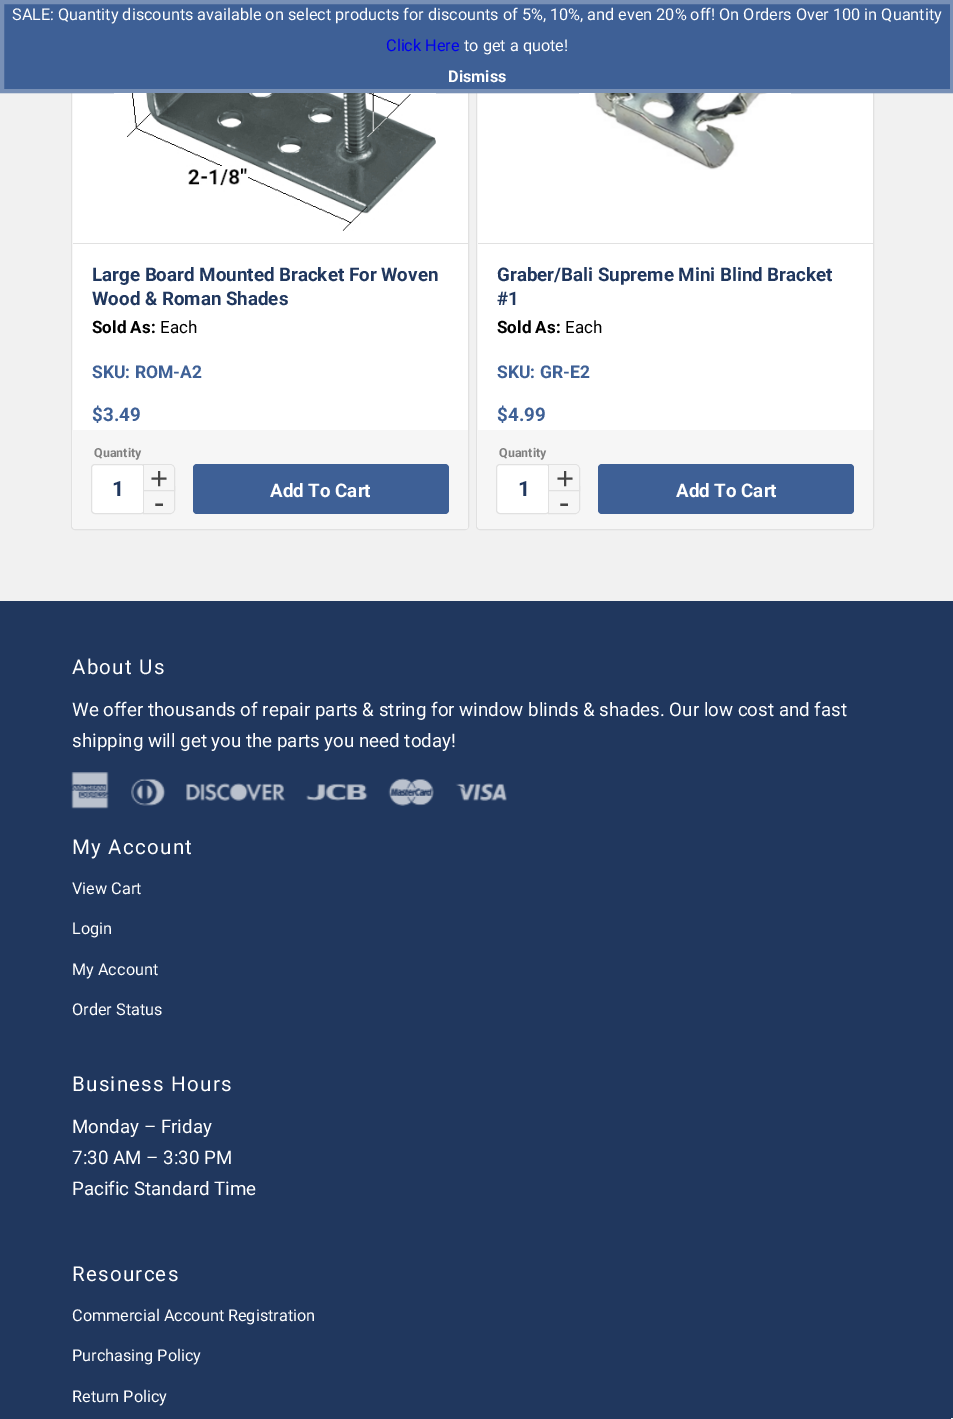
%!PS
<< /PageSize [953 1419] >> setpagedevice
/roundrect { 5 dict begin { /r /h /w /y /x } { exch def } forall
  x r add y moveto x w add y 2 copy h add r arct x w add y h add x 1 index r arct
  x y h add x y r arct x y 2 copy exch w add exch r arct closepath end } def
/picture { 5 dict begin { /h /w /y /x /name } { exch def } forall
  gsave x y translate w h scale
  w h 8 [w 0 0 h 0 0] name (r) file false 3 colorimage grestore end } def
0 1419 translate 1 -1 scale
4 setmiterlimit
0.945 setgray
0 0 953 1419 rectfill
1 setgray
71.5 -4.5 397 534 3.5 roundrect gsave fill grestore
0.882 setgray
stroke
1 setgray
476.5 -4.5 397 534 3.5 roundrect gsave fill grestore
0.882 setgray
stroke
0.243 0.376 0.588 setrgbcolor
newpath 2 2 moveto 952 2 lineto 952 91 lineto 2 91 lineto closepath gsave fill grestore
0.471 0.565 0.714 setrgbcolor
4 setlinewidth
stroke
/Roboto-Regular [16.25 0 0 -16.25 0 0] selectfont
1 setgray
12 20 moveto (SALE: Quantity discounts available on select products for discounts of 5%, 10%, and even 20% off! On Orders Over 100 in Quantity) show
0 0 0.933 setrgbcolor
386 51 moveto (Click Here) show
1 setgray
464 51 moveto (to get a quote!) show
/Roboto-Bold [16.25 0 0 -16.25 0 0] selectfont
448 82 moveto (Dismiss) show
(img1.rgb) 114 93 322 138 picture
0.882 setgray
73 243 395 1 rectfill
/Roboto-Bold [18.75 0 0 -18.75 0 0] selectfont
0.125 0.216 0.369 setrgbcolor
92 281 moveto (Large Board Mounted Bracket For Woven) show
92 305 moveto (Wood & Roman Shades) show
/Roboto-Bold [17 0 0 -17 0 0] selectfont
0 setgray
92 333 moveto (Sold As:) show
/Roboto-Regular [17 0 0 -17 0 0] selectfont
160 333 moveto (Each) show
/Roboto-Bold [17.5 0 0 -17.5 0 0] selectfont
0.243 0.376 0.588 setrgbcolor
92 378 moveto (SKU: ROM-A2) show
/Roboto-Bold [18.75 0 0 -18.75 0 0] selectfont
92 421 moveto ($3.49) show
0.965 setgray
newpath 73 430 moveto 468 430 lineto 468 526.5 lineto 468 528 467 529 465.5 529 curveto 75.5 529 lineto 74 529 73 528 73 526.5 curveto closepath fill
/Roboto-Bold [12.5 0 0 -12.5 0 0] selectfont
0.502 setgray
94 457 moveto (Quantity) show
1 setgray
91.5 464.5 53 49 3.5 roundrect gsave fill grestore
0.882 setgray
1 setlinewidth
stroke
/Roboto-Bold [21 0 0 -21 0 0] selectfont
0.125 0.216 0.369 setrgbcolor
112 496 moveto (1) show
0.882 setgray
newpath 143.5 486.5 moveto 174.5 486.5 lineto 174.5 509 lineto 174.5 511.5 172.5 513.5 170 513.5 curveto 143.5 513.5 lineto closepath stroke
0.965 setgray
newpath 144 488 moveto 174 488 lineto 174 509 lineto 174 511 172 513 170 513 curveto 144 513 lineto closepath fill
0.882 setgray
newpath 143.5 464.5 moveto 170 464.5 lineto 172.5 464.5 174.5 466.5 174.5 469 curveto 174.5 490.5 lineto 143.5 490.5 lineto closepath stroke
0.965 setgray
newpath 144 465 moveto 170 465 lineto 172 465 174 467 174 469 curveto 174 490 lineto 144 490 lineto closepath fill
/LiberationSans-Regular [31 0 0 -31 0 0] selectfont
0.271 setgray
150 489 moveto (+) show
154 513 moveto (-) show
0.243 0.376 0.588 setrgbcolor
193 464 256 50 4 roundrect fill
/Roboto-Bold [18.75 0 0 -18.75 0 0] selectfont
1 setgray
270 497 moveto (Add To Cart) show
(img2.rgb) 579 93 212 77 picture
0.882 setgray
478 243 395 1 rectfill
0.125 0.216 0.369 setrgbcolor
497 281 moveto (Graber/Bali Supreme Mini Blind Bracket) show
497 305 moveto (#1) show
/Roboto-Bold [17 0 0 -17 0 0] selectfont
0 setgray
497 333 moveto (Sold As:) show
/Roboto-Regular [17 0 0 -17 0 0] selectfont
565 333 moveto (Each) show
/Roboto-Bold [17.5 0 0 -17.5 0 0] selectfont
0.243 0.376 0.588 setrgbcolor
497 378 moveto (SKU: GR-E2) show
/Roboto-Bold [18.75 0 0 -18.75 0 0] selectfont
497 421 moveto ($4.99) show
0.965 setgray
newpath 478 430 moveto 873 430 lineto 873 526.5 lineto 873 528 872 529 870.5 529 curveto 480.5 529 lineto 479 529 478 528 478 526.5 curveto closepath fill
/Roboto-Bold [12.5 0 0 -12.5 0 0] selectfont
0.502 setgray
499 457 moveto (Quantity) show
1 setgray
496.5 464.5 53 49 3.5 roundrect gsave fill grestore
0.882 setgray
stroke
/Roboto-Bold [21 0 0 -21 0 0] selectfont
0.125 0.216 0.369 setrgbcolor
518 496 moveto (1) show
0.882 setgray
newpath 548.5 486.5 moveto 579.5 486.5 lineto 579.5 509 lineto 579.5 511.5 577.5 513.5 575 513.5 curveto 548.5 513.5 lineto closepath stroke
0.965 setgray
newpath 549 488 moveto 579 488 lineto 579 509 lineto 579 511 577 513 575 513 curveto 549 513 lineto closepath fill
0.882 setgray
newpath 548.5 464.5 moveto 575 464.5 lineto 577.5 464.5 579.5 466.5 579.5 469 curveto 579.5 490.5 lineto 548.5 490.5 lineto closepath stroke
0.965 setgray
newpath 549 465 moveto 575 465 lineto 577 465 579 467 579 469 curveto 579 490 lineto 549 490 lineto closepath fill
/LiberationSans-Regular [31 0 0 -31 0 0] selectfont
0.271 setgray
556 489 moveto (+) show
559 513 moveto (-) show
0.243 0.376 0.588 setrgbcolor
598 464 256 50 4 roundrect fill
/Roboto-Bold [18.75 0 0 -18.75 0 0] selectfont
1 setgray
676 497 moveto (Add To Cart) show
0.125 0.216 0.369 setrgbcolor
0 601 953 818 rectfill
/Roboto-Regular [20.5 0 0 -20.5 0 0] selectfont
1 setgray
72 674 moveto 1.25 0 (About Us) ashow
/Roboto-Regular [18.75 0 0 -18.75 0 0] selectfont
72 716 moveto (We offer thousands of repair parts & string for window blinds & shades. Our low cost and fast) show
72 747 moveto (shipping will get you the parts you need today!) show
(img3.rgb) 71 772 436 37 picture
/Roboto-Regular [20.5 0 0 -20.5 0 0] selectfont
72 854 moveto 1.25 0 (My Account) ashow
/Roboto-Regular [16.25 0 0 -16.25 0 0] selectfont
72 894 moveto (View Cart) show
72 934 moveto (Login) show
72 975 moveto (My Account) show
72 1015 moveto (Order Status) show
/Roboto-Regular [20.5 0 0 -20.5 0 0] selectfont
72 1091 moveto 1.25 0 (Business Hours) ashow
/Roboto-Regular [18.75 0 0 -18.75 0 0] selectfont
72 1133 moveto (Monday – Friday) show
72 1164 moveto (7:30 AM – 3:30 PM) show
72 1195 moveto (Pacific Standard Time) show
/Roboto-Regular [20.5 0 0 -20.5 0 0] selectfont
72 1281 moveto 1.25 0 (Resources) ashow
/Roboto-Regular [16.25 0 0 -16.25 0 0] selectfont
72 1321 moveto (Commercial Account Registration) show
72 1361 moveto (Purchasing Policy) show
72 1402 moveto (Return Policy) show
0.961 setgray
951 1418 2 1 rectfill
showpage
